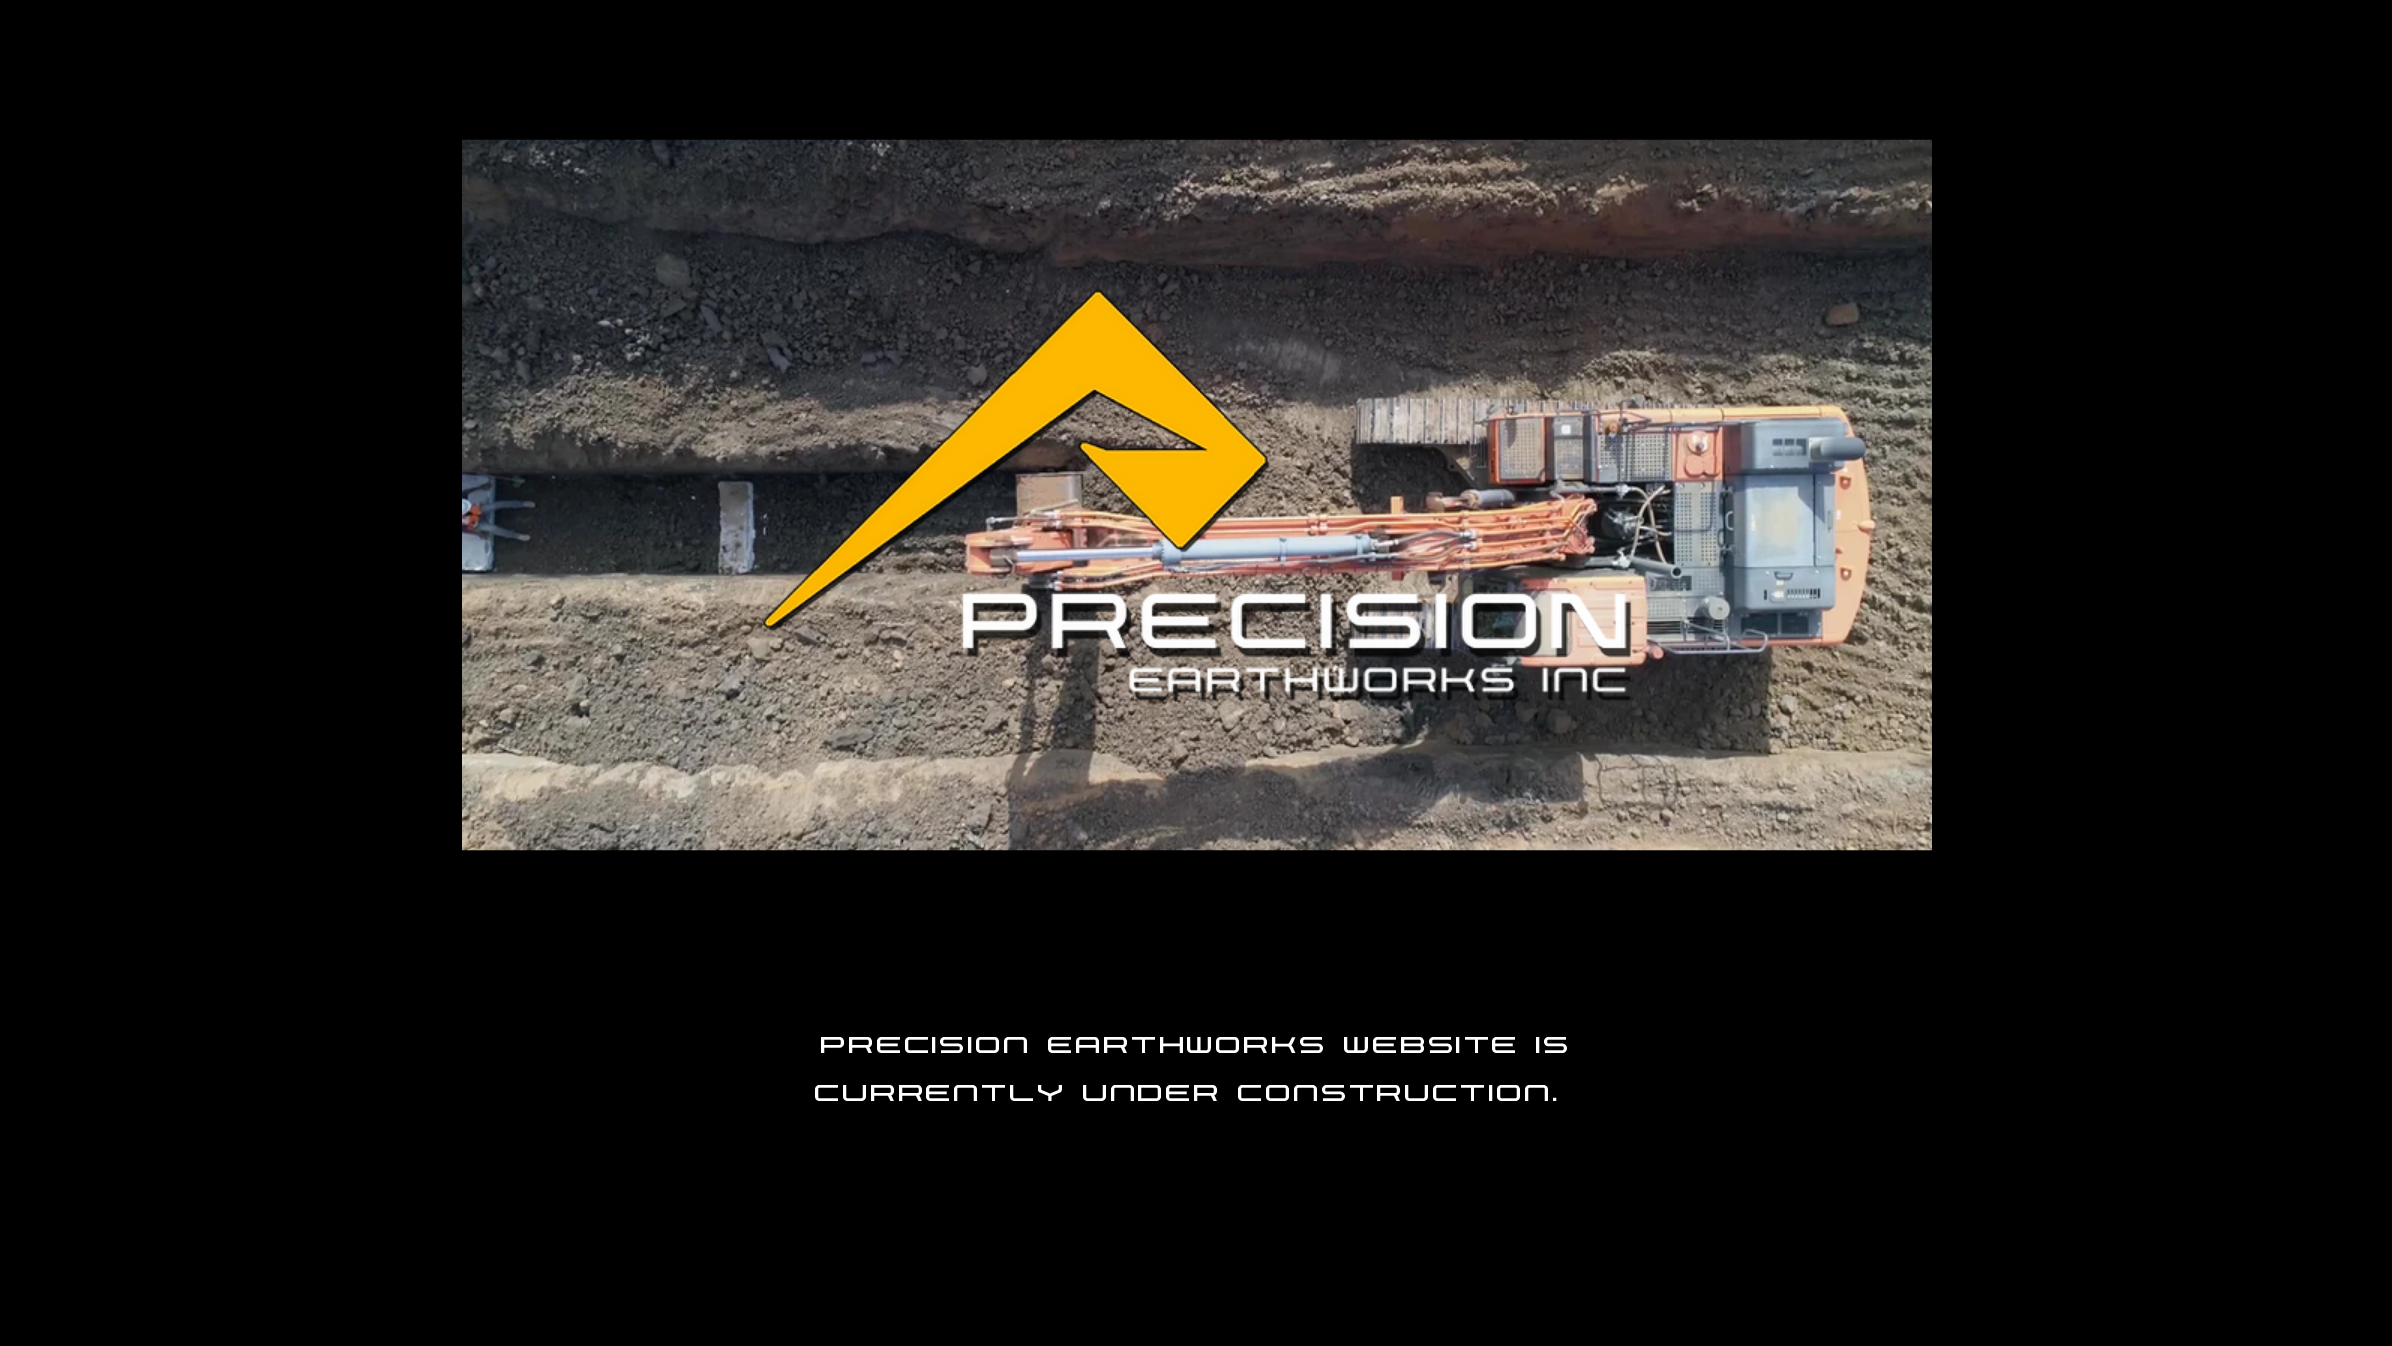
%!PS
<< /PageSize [2392 1346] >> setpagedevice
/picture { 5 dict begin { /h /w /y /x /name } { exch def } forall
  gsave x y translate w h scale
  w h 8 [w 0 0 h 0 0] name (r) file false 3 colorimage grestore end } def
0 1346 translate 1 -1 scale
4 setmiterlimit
0 setgray
0 0 2392 1346 rectfill
(img1.rgb) 462 139 1470 712 picture
(img2.rgb) 762 289 870 413 picture
/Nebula-Regular [33 0 0 -33 0 0] selectfont
1 setgray
821 1053 moveto (precision earthworks website is) show
815 1101 moveto (currently under construction.) show
showpage
